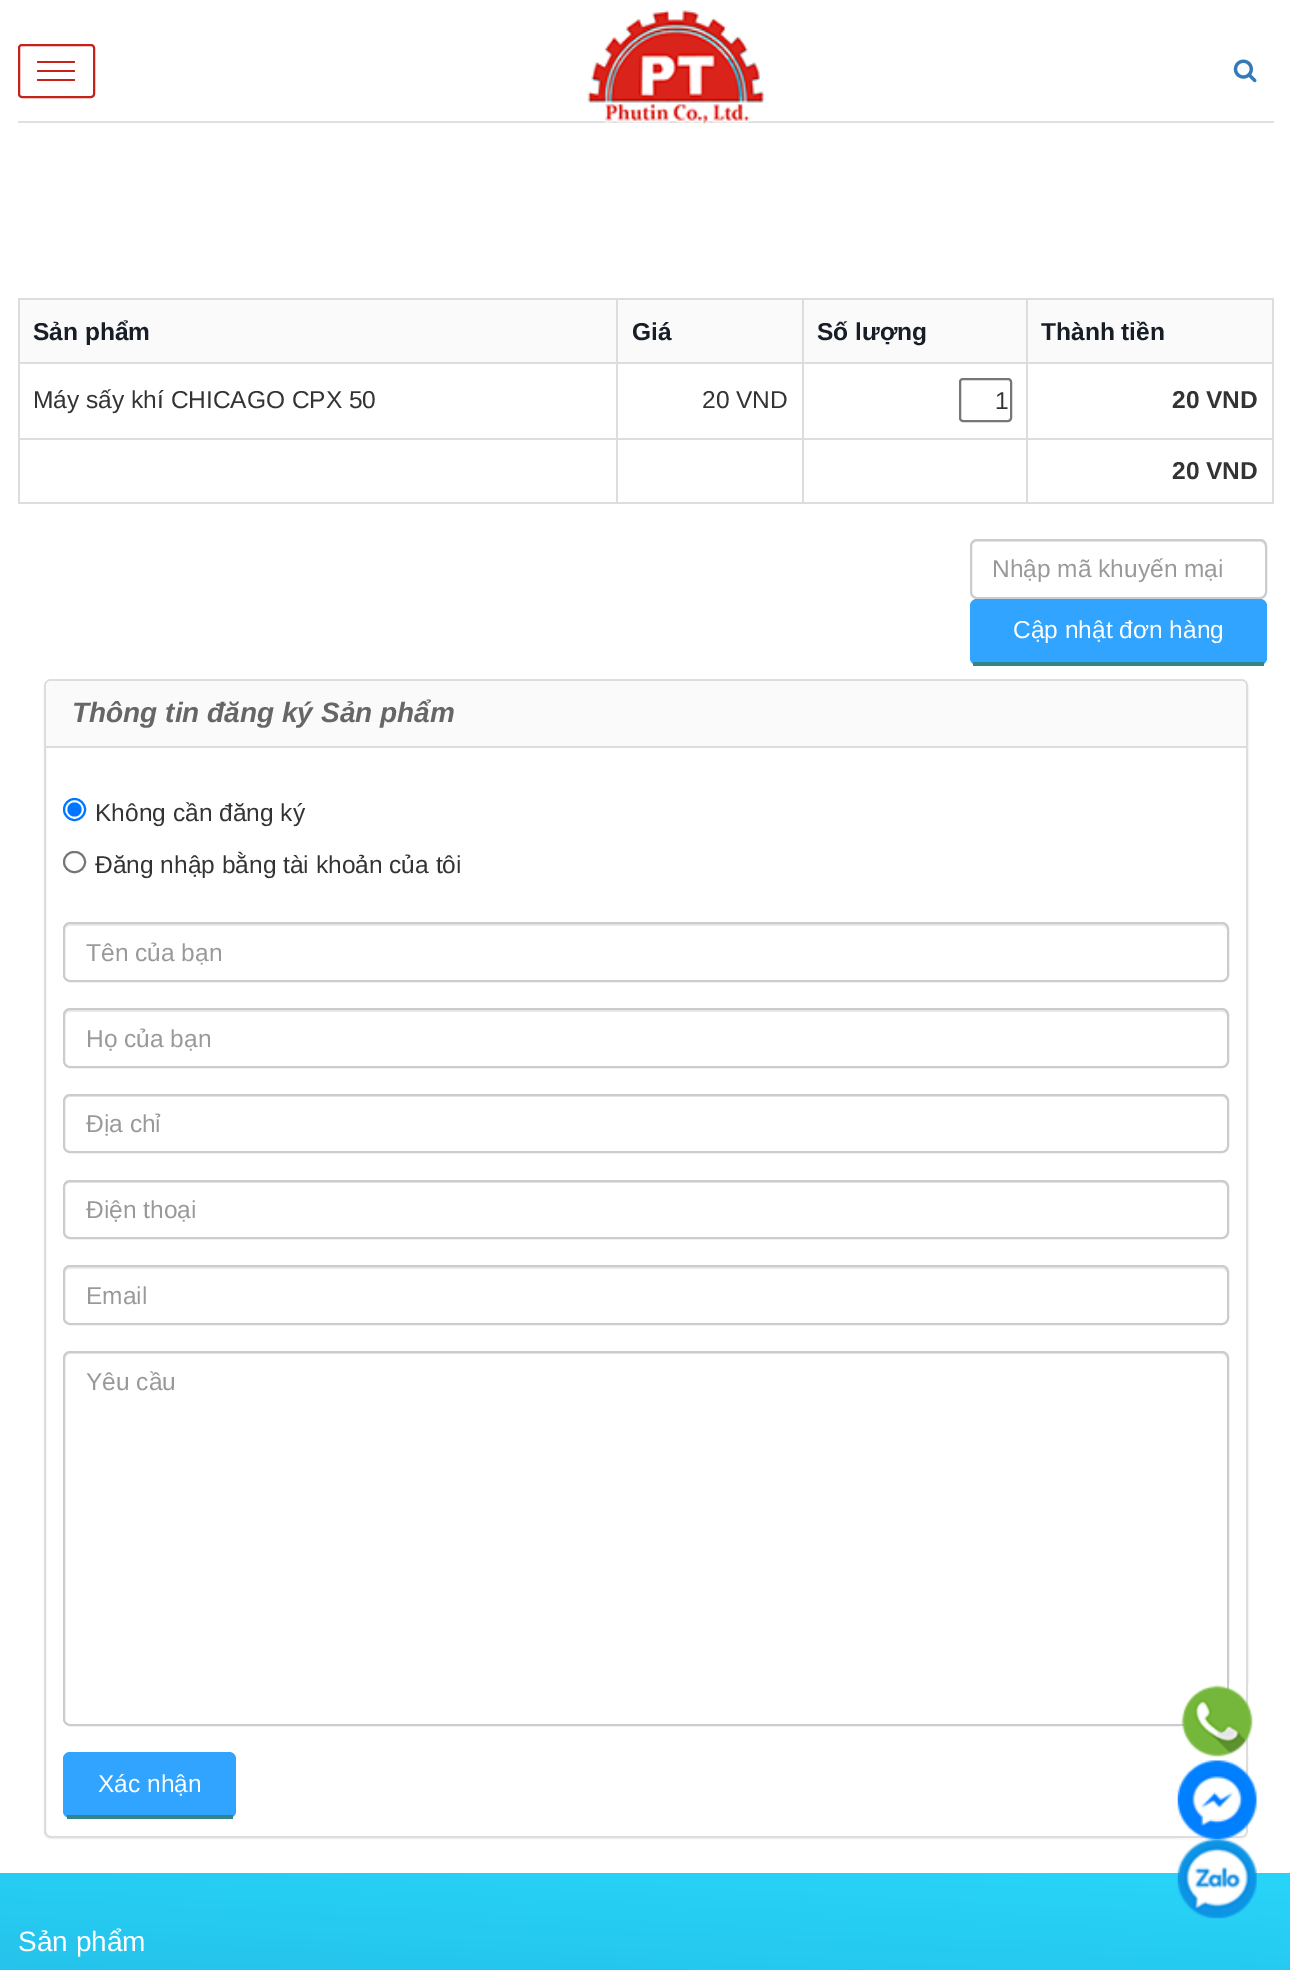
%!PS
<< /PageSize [1290 1970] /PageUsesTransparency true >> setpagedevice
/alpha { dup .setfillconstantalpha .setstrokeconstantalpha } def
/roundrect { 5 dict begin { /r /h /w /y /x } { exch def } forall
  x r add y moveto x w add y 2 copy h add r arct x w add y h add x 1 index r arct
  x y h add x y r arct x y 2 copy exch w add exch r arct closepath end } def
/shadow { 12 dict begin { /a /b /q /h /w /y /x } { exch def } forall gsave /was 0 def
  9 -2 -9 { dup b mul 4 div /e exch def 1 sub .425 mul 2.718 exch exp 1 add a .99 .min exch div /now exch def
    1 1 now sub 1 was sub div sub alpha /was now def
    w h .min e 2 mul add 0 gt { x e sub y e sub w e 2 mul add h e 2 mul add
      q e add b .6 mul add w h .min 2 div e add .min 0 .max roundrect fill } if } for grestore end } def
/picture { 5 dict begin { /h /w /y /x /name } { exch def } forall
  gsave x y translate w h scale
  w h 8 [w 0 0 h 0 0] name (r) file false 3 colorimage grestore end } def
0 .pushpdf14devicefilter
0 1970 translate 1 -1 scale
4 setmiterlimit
1 setgray
0 0 1290 1970 rectfill
0.878 setgray
18 121 1256 2 rectfill
0.769 0.133 0.102 setrgbcolor
2 setlinewidth
19 45 75 52 3 roundrect stroke
37 61 38 2 1 roundrect fill
37 70 38 2 1 roundrect fill
37 79 38 2 1 roundrect fill
(img1.rgb) 587 10 177 115 picture
(img2.rgb) 1233 59 24 24 picture
0.867 setgray
18 298 1256 2 rectfill
1272 298 2 206 rectfill
18 502 1256 2 rectfill
18 298 2 206 rectfill
0.98 setgray
20 300 1252 62 rectfill
/LiberationSans-Bold [24.5 0 0 -24.5 0 0] selectfont
0.09 0.118 0.153 setrgbcolor
33 340 moveto (Sản phẩm) show
0.867 setgray
1026 362 248 2 rectfill
1026 438 248 2 rectfill
1026 438 2 66 rectfill
802 438 225 2 rectfill
1026 362 2 77 rectfill
802 362 225 2 rectfill
802 438 2 66 rectfill
616 438 187 2 rectfill
802 362 2 77 rectfill
616 362 187 2 rectfill
616 438 2 66 rectfill
18 438 600 2 rectfill
616 362 2 77 rectfill
18 362 600 2 rectfill
616 298 2 66 rectfill
0.09 0.118 0.153 setrgbcolor
632 340 moveto (Giá) show
0.867 setgray
802 298 2 66 rectfill
0.09 0.118 0.153 setrgbcolor
817 340 moveto (Số lượng) show
0.867 setgray
1026 298 2 66 rectfill
0.09 0.118 0.153 setrgbcolor
1041 340 moveto (Thành tiền) show
/LiberationSans-Regular [24.5 0 0 -24.5 0 0] selectfont
0.2 setgray
33 408 moveto (Máy sấy khí CHICAGO CPX 50) show
702 408 moveto (20 VND) show
0.463 setgray
960 379 51 42 3 roundrect stroke
0.2 setgray
995 409 moveto (1) show
/LiberationSans-Bold [24.5 0 0 -24.5 0 0] selectfont
1172 408 moveto (20 VND) show
1172 479 moveto (20 VND) show
0.925 setgray
newpath 976 542 moveto 1260 542 lineto 1263 542 1265 545 1265 548 curveto 1265 545 1264 541 1260 541 curveto 975 541 lineto 971 542 971 545 971 548 curveto 971 545 974 542 976 542 curveto closepath fill
0.8 setgray
971 540 295 58 6 roundrect stroke
/LiberationSans-Regular [24.5 0 0 -24.5 0 0] selectfont
0.6 setgray
992 577 moveto (Nhập mã khuyến mại) show
0.192 0.643 1 setrgbcolor
970 599 297 66 7 roundrect fill
0.204 0.522 0.537 setrgbcolor
973 662 291 4 rectfill
1 setgray
1013 638 moveto (Cập nhật đơn hàng) show
0 setgray
44 681 1204 1158 7 1 0.05 shadow
1 setgray
45 680 1202 1157 6 roundrect gsave fill grestore
0.867 setgray
stroke
0.98 setgray
newpath 51 681 moveto 1241 681 lineto 1244 681 1246 683 1246 686 curveto 1246 747 lineto 46 747 lineto 46 686 lineto 46 683 48 681 51 681 curveto closepath fill
0.867 setgray
46 746 1200 2 rectfill
/LiberationSans-BoldItalic [28 0 0 -28 0 0] selectfont
0.4 setgray
72 722 moveto (Thông tin đăng ký Sản phẩm) show
0 0.459 1 setrgbcolor
newpath 74.5 809.5 10.5 0 360 arc closepath stroke
newpath 74.5 809.5 7 0 360 arc closepath fill
/LiberationSans-Regular [24.5 0 0 -24.5 0 0] selectfont
0.2 setgray
95 821 moveto (Không cần đăng ký) show
0.463 setgray
64 852 21 20 10 roundrect stroke
0.2 setgray
95 873 moveto (Đăng nhập bằng tài khoản của tôi) show
0.925 setgray
newpath 70 926 moveto 1222 926 lineto 1224 926 1227 928 1227 931 curveto 1227 929 lineto 1227 926 1225 924 1222 924 curveto 70 924 lineto 67 924 65 926 65 929 curveto 65 931 lineto 65 928 67 926 70 926 curveto closepath fill
0.8 setgray
64 923 1164 58 6 roundrect stroke
0.6 setgray
86 961 moveto (Tên của bạn) show
0.925 setgray
newpath 70 1012 moveto 1222 1012 lineto 1224 1012 1227 1014 1227 1017 curveto 1227 1015 lineto 1227 1012 1225 1010 1222 1010 curveto 70 1010 lineto 67 1010 65 1012 65 1015 curveto 65 1017 lineto 65 1014 67 1012 70 1012 curveto closepath fill
0.8 setgray
64 1009 1164 58 6 roundrect stroke
0.6 setgray
86 1047 moveto (Họ của bạn) show
0.925 setgray
newpath 70 1097 moveto 1222 1097 lineto 1224 1097 1227 1100 1227 1102 curveto 1227 1099 1225 1096 1222 1096 curveto 70 1096 lineto 67 1096 65 1099 65 1102 curveto 65 1100 67 1097 70 1097 curveto closepath fill
0.8 setgray
64 1095 1164 57 6 roundrect stroke
0.6 setgray
86 1132 moveto (Địa chỉ) show
0.925 setgray
newpath 70 1183 moveto 1222 1183 lineto 1224 1183 1227 1185 1227 1188 curveto 1227 1186 lineto 1227 1183 1225 1181 1222 1181 curveto 70 1181 lineto 67 1181 65 1183 65 1186 curveto 65 1188 lineto 65 1185 67 1183 70 1183 curveto closepath fill
0.8 setgray
64 1181 1164 57 6 roundrect stroke
0.6 setgray
86 1218 moveto (Điện thoại) show
0.925 setgray
newpath 70 1269 moveto 1222 1269 lineto 1224 1269 1227 1271 1227 1274 curveto 1227 1272 lineto 1227 1269 1225 1267 1222 1267 curveto 70 1267 lineto 67 1267 65 1269 65 1272 curveto 65 1274 lineto 65 1271 67 1269 70 1269 curveto closepath fill
0.8 setgray
64 1266 1164 58 6 roundrect stroke
0.6 setgray
86 1304 moveto (Email) show
0.925 setgray
newpath 70 1354 moveto 1222 1354 lineto 1224 1354 1227 1357 1227 1360 curveto 1227 1358 lineto 1227 1355 1225 1353 1222 1353 curveto 70 1353 lineto 67 1353 65 1355 65 1358 curveto 65 1360 lineto 65 1357 67 1354 70 1354 curveto closepath fill
0.8 setgray
64 1352 1164 373 6 roundrect stroke
0.6 setgray
86 1390 moveto (Yêu cầu) show
0.192 0.643 1 setrgbcolor
63 1752 173 66 7 roundrect fill
0.204 0.522 0.537 setrgbcolor
67 1815 166 4 rectfill
1 setgray
98 1792 moveto (Xác nhận) show
gsave newpath 0 1873 moveto 1290 1873 lineto 1290 1970 lineto 0 1970 lineto closepath clip newpath
<< /ShadingType 2 /ColorSpace /DeviceRGB /Coords [596 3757 696 1841] /Extend [true true] /Function << /FunctionType 3 /Domain [0 1] /Functions [<< /FunctionType 2 /Domain [0 1] /C0 [0.035 0.035 0.475] /C1 [0.063 0.294 0.565] /N 1 >> << /FunctionType 2 /Domain [0 1] /C0 [0.063 0.294 0.565] /C1 [0.157 0.835 0.976] /N 1 >>] /Bounds [0.35] /Encode [0 1 0 1] >> >> shfill grestore
(img3.rgb) 1180 1684 73 73 picture
(img4.rgb) 1177 1760 80 80 picture
(img5.rgb) 1177 1838 80 81 picture
/LiberationSans-Regular [28 0 0 -28 0 0] selectfont
18 1951 moveto (Sản phẩm) show
.poppdf14devicefilter showpage
